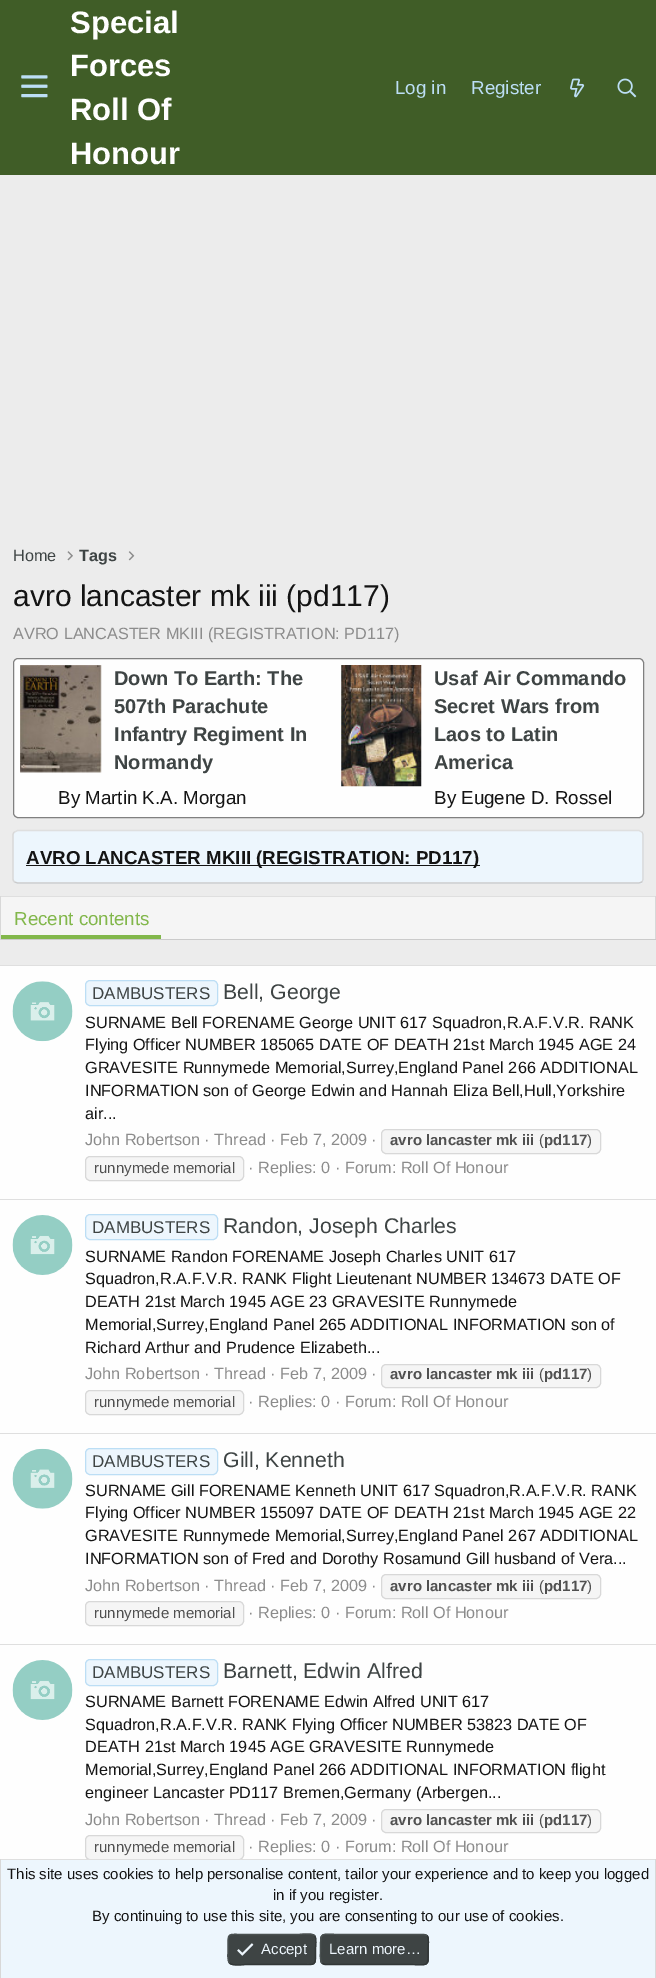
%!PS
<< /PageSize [656 1978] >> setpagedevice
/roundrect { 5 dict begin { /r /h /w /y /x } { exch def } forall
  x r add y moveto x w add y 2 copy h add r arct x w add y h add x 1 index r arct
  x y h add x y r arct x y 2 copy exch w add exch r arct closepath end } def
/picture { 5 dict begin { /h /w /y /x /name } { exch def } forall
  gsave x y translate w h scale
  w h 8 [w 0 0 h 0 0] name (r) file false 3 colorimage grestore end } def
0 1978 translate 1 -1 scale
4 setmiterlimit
0.925 setgray
0 0 656 1978 rectfill
0.251 0.365 0.153 setrgbcolor
0 0 656 175 rectfill
(img1.rgb) 21 75 27 23 picture
/LiberationSans-Bold [31 0 0 -31 0 0] selectfont
1 setgray
70 33 moveto (Special) show
70 76 moveto (Forces) show
70 120 moveto (Roll Of) show
70 164 moveto (Honour) show
/LiberationSans-Regular [18.75 0 0 -18.75 0 0] selectfont
0.737 0.871 0.961 setrgbcolor
395 94 moveto (Log in) show
471 94 moveto (Register) show
(img2.rgb) 570 78 15 20 picture
(img3.rgb) 617 78 20 20 picture
/LiberationSans-Regular [16.25 0 0 -16.25 0 0] selectfont
0.243 0.267 0.267 setrgbcolor
13 561 moveto (Home) show
(img4.rgb) 67 551 6 10 picture
/LiberationSans-Bold [16.25 0 0 -16.25 0 0] selectfont
79 561 moveto (Tags) show
(img5.rgb) 128 551 7 10 picture
/LiberationSans-Regular [30 0 0 -30 0 0] selectfont
0.078 setgray
13 606 moveto (avro lancaster mk iii \(pd117\)) show
/LiberationSans-Regular [16.25 0 0 -16.25 0 0] selectfont
0.549 setgray
13 639 moveto (AVRO LANCASTER MKIII \(REGISTRATION: PD117\)) show
0.996 setgray
13.5 658.5 630 159 4.5 roundrect gsave fill grestore
0.502 setgray
stroke
(img6.rgb) 20 665 82 108 picture
/LiberationSans-Bold [20 0 0 -20 0 0] selectfont
0.243 0.267 0.267 setrgbcolor
114 685 moveto (Down To Earth: The) show
114 713 moveto (507th Parachute) show
114 741 moveto (Infantry Regiment In) show
114 769 moveto (Normandy) show
/LiberationSans-Regular [18.75 0 0 -18.75 0 0] selectfont
0.078 setgray
58 804 moveto (By Martin K.A. Morgan) show
(img7.rgb) 341 665 81 122 picture
/LiberationSans-Bold [20 0 0 -20 0 0] selectfont
0.243 0.267 0.267 setrgbcolor
434 685 moveto (Usaf Air Commando) show
434 713 moveto (Secret Wars from) show
434 741 moveto (Laos to Latin) show
434 769 moveto (America) show
/LiberationSans-Regular [18.75 0 0 -18.75 0 0] selectfont
0.078 setgray
434 804 moveto (By Eugene D. Rossel) show
0.929 0.965 0.992 setrgbcolor
13 830 631 54 5 roundrect fill
0.875 setgray
1.2 setlinewidth
newpath 14.5 832 moveto 17.5 830.5 lineto 639 830.5 lineto 642 832 lineto stroke
0.847 setgray
newpath 642 832 moveto 642.5 832.5 643 834 643 835 curveto 643 879 lineto 643 880 642.5 881 642 882 curveto stroke
0.796 setgray
newpath 642 882 moveto 639 883 lineto 17.5 883 lineto 14.5 882 lineto stroke
0.847 setgray
newpath 14.5 882 moveto 13.5 881 13 880 13 879 curveto 13 835 lineto 13 834 13.5 832.5 14.5 832 curveto stroke
0.078 setgray
26 865 454 1 rectfill
/LiberationSans-Bold [18.75 0 0 -18.75 0 0] selectfont
26 864 moveto (AVRO LANCASTER MKIII \(REGISTRATION: PD117\)) show
0.961 setgray
1 897 654 42 rectfill
0.875 setgray
0 896 656 1 rectfill
0.847 setgray
655 896 1 44 rectfill
0.796 setgray
0 939 656 1 rectfill
0.847 setgray
0 896 1 44 rectfill
0.51 0.718 0.294 setrgbcolor
1 935 160 4 rectfill
/LiberationSans-Regular [18.75 0 0 -18.75 0 0] selectfont
14 925 moveto (Recent contents) show
0.996 setgray
0 966 656 893 rectfill
0.875 setgray
0 965 656 1 rectfill
(img8.rgb) 12 981 61 61 picture
0.929 0.965 0.992 setrgbcolor
85.5 980.5 132 25 4.5 roundrect gsave fill grestore
0.737 0.871 0.961 setrgbcolor
1 setlinewidth
stroke
/LiberationSans-Regular [17 0 0 -17 0 0] selectfont
0.243 0.267 0.267 setrgbcolor
92 999 moveto (DAMBUSTERS) show
/LiberationSans-Regular [21.25 0 0 -21.25 0 0] selectfont
223 999 moveto (Bell, George) show
/LiberationSans-Regular [16.25 0 0 -16.25 0 0] selectfont
0.078 setgray
85 1028 moveto (SURNAME Bell FORENAME George UNIT 617 Squadron,R.A.F.V.R. RANK) show
85 1050 moveto (Flying Officer NUMBER 185065 DATE OF DEATH 21st March 1945 AGE 24) show
85 1073 moveto (GRAVESITE Runnymede Memorial,Surrey,England Panel 266 ADDITIONAL) show
85 1096 moveto (INFORMATION son of George Edwin and Hannah Eliza Bell,Hull,Yorkshire) show
85 1119 moveto (air...) show
0.549 setgray
85 1145 moveto (John Robertson · Thread · Feb 7, 2009 ·) show
0.961 setgray
381.5 1129.5 219 24 4.5 roundrect gsave fill grestore
0.847 setgray
stroke
/LiberationSans-Bold [15 0 0 -15 0 0] selectfont
0.314 setgray
390 1145 moveto (avro lancaster mk iii) show
/LiberationSans-Regular [15 0 0 -15 0 0] selectfont
539 1145 moveto (\() show
/LiberationSans-Bold [15 0 0 -15 0 0] selectfont
544 1145 moveto (pd117) show
/LiberationSans-Regular [15 0 0 -15 0 0] selectfont
587 1145 moveto (\)) show
0.961 setgray
85.5 1156.5 158 24 4.5 roundrect gsave fill grestore
0.847 setgray
stroke
0.314 setgray
94 1173 moveto (runnymede memorial) show
/LiberationSans-Regular [16.25 0 0 -16.25 0 0] selectfont
0.549 setgray
248 1173 moveto (· Replies: 0 · Forum: Roll Of Honour) show
0.875 setgray
0 1199 656 1 rectfill
(img9.rgb) 12 1215 61 60 picture
0.929 0.965 0.992 setrgbcolor
85.5 1214.5 132 25 4.5 roundrect gsave fill grestore
0.737 0.871 0.961 setrgbcolor
stroke
/LiberationSans-Regular [17 0 0 -17 0 0] selectfont
0.243 0.267 0.267 setrgbcolor
92 1233 moveto (DAMBUSTERS) show
/LiberationSans-Regular [21.25 0 0 -21.25 0 0] selectfont
223 1233 moveto (Randon, Joseph Charles) show
/LiberationSans-Regular [16.25 0 0 -16.25 0 0] selectfont
0.078 setgray
85 1262 moveto (SURNAME Randon FORENAME Joseph Charles UNIT 617) show
85 1284 moveto (Squadron,R.A.F.V.R. RANK Flight Lieutenant NUMBER 134673 DATE OF) show
85 1307 moveto (DEATH 21st March 1945 AGE 23 GRAVESITE Runnymede) show
85 1330 moveto (Memorial,Surrey,England Panel 265 ADDITIONAL INFORMATION son of) show
85 1353 moveto (Richard Arthur and Prudence Elizabeth...) show
0.549 setgray
85 1379 moveto (John Robertson · Thread · Feb 7, 2009 ·) show
0.961 setgray
381.5 1364.5 219 23 4.5 roundrect gsave fill grestore
0.847 setgray
stroke
/LiberationSans-Bold [15 0 0 -15 0 0] selectfont
0.314 setgray
390 1379 moveto (avro lancaster mk iii) show
/LiberationSans-Regular [15 0 0 -15 0 0] selectfont
539 1379 moveto (\() show
/LiberationSans-Bold [15 0 0 -15 0 0] selectfont
544 1379 moveto (pd117) show
/LiberationSans-Regular [15 0 0 -15 0 0] selectfont
587 1379 moveto (\)) show
0.961 setgray
85.5 1390.5 158 24 4.5 roundrect gsave fill grestore
0.847 setgray
stroke
0.314 setgray
94 1407 moveto (runnymede memorial) show
/LiberationSans-Regular [16.25 0 0 -16.25 0 0] selectfont
0.549 setgray
248 1407 moveto (· Replies: 0 · Forum: Roll Of Honour) show
0.875 setgray
0 1433 656 1 rectfill
(img10.rgb) 12 1448 61 61 picture
0.929 0.965 0.992 setrgbcolor
85.5 1448.5 132 26 4.5 roundrect gsave fill grestore
0.737 0.871 0.961 setrgbcolor
stroke
/LiberationSans-Regular [17 0 0 -17 0 0] selectfont
0.243 0.267 0.267 setrgbcolor
92 1467 moveto (DAMBUSTERS) show
/LiberationSans-Regular [21.25 0 0 -21.25 0 0] selectfont
223 1467 moveto (Gill, Kenneth) show
/LiberationSans-Regular [16.25 0 0 -16.25 0 0] selectfont
0.078 setgray
85 1496 moveto (SURNAME Gill FORENAME Kenneth UNIT 617 Squadron,R.A.F.V.R. RANK) show
85 1518 moveto (Flying Officer NUMBER 155097 DATE OF DEATH 21st March 1945 AGE 22) show
85 1541 moveto (GRAVESITE Runnymede Memorial,Surrey,England Panel 267 ADDITIONAL) show
85 1564 moveto (INFORMATION son of Fred and Dorothy Rosamund Gill husband of Vera...) show
0.549 setgray
85 1591 moveto (John Robertson · Thread · Feb 7, 2009 ·) show
0.961 setgray
381.5 1574.5 219 24 4.5 roundrect gsave fill grestore
0.847 setgray
stroke
/LiberationSans-Bold [15 0 0 -15 0 0] selectfont
0.314 setgray
390 1591 moveto (avro lancaster mk iii) show
/LiberationSans-Regular [15 0 0 -15 0 0] selectfont
539 1591 moveto (\() show
/LiberationSans-Bold [15 0 0 -15 0 0] selectfont
544 1591 moveto (pd117) show
/LiberationSans-Regular [15 0 0 -15 0 0] selectfont
587 1591 moveto (\)) show
0.961 setgray
85.5 1601.5 158 24 4.5 roundrect gsave fill grestore
0.847 setgray
stroke
0.314 setgray
94 1618 moveto (runnymede memorial) show
/LiberationSans-Regular [16.25 0 0 -16.25 0 0] selectfont
0.549 setgray
248 1618 moveto (· Replies: 0 · Forum: Roll Of Honour) show
0.875 setgray
0 1644 656 1 rectfill
(img11.rgb) 12 1660 61 60 picture
0.929 0.965 0.992 setrgbcolor
85.5 1659.5 132 26 4.5 roundrect gsave fill grestore
0.737 0.871 0.961 setrgbcolor
stroke
/LiberationSans-Regular [17 0 0 -17 0 0] selectfont
0.243 0.267 0.267 setrgbcolor
92 1678 moveto (DAMBUSTERS) show
/LiberationSans-Regular [21.25 0 0 -21.25 0 0] selectfont
223 1678 moveto (Barnett, Edwin Alfred) show
/LiberationSans-Regular [16.25 0 0 -16.25 0 0] selectfont
0.078 setgray
85 1707 moveto (SURNAME Barnett FORENAME Edwin Alfred UNIT 617) show
85 1730 moveto (Squadron,R.A.F.V.R. RANK Flying Officer NUMBER 53823 DATE OF) show
85 1752 moveto (DEATH 21st March 1945 AGE GRAVESITE Runnymede) show
85 1775 moveto (Memorial,Surrey,England Panel 266 ADDITIONAL INFORMATION flight) show
85 1798 moveto (engineer Lancaster PD117 Bremen,Germany \(Arbergen...) show
0.549 setgray
85 1825 moveto (John Robertson · Thread · Feb 7, 2009 ·) show
0.961 setgray
381.5 1809.5 219 23 4.5 roundrect gsave fill grestore
0.847 setgray
stroke
/LiberationSans-Bold [15 0 0 -15 0 0] selectfont
0.314 setgray
390 1825 moveto (avro lancaster mk iii) show
/LiberationSans-Regular [15 0 0 -15 0 0] selectfont
539 1825 moveto (\() show
/LiberationSans-Bold [15 0 0 -15 0 0] selectfont
544 1825 moveto (pd117) show
/LiberationSans-Regular [15 0 0 -15 0 0] selectfont
587 1825 moveto (\)) show
0.961 setgray
85.5 1835.5 158 24 4.5 roundrect gsave fill grestore
0.847 setgray
stroke
0.314 setgray
94 1852 moveto (runnymede memorial) show
/LiberationSans-Regular [16.25 0 0 -16.25 0 0] selectfont
0.549 setgray
248 1852 moveto (· Replies: 0 · Forum: Roll Of Honour) show
0.929 0.965 0.992 setrgbcolor
1 1860 654 118 rectfill
0.875 setgray
0 1859 656 1 rectfill
0.847 setgray
655 1859 1 119 rectfill
0 1859 1 119 rectfill
/LiberationSans-Regular [15 0 0 -15 0 0] selectfont
0.078 setgray
7 1879 moveto (This site uses cookies to help personalise content, tailor your experience and to keep you logged) show
273 1900 moveto (in if you register.) show
92 1921 moveto (By continuing to use this site, you are consenting to our use of cookies.) show
0.243 0.267 0.267 setrgbcolor
228 1934 88 31 5 roundrect fill
0.196 0.216 0.216 setrgbcolor
1.2 setlinewidth
newpath 314.5 1935.5 moveto 317 1938.5 315.5 1946 315.5 1949.5 curveto 315.5 1967 317 1964.5 298 1964.5 curveto 245.5 1964.5 lineto 244.5 1964.5 232.5 1966.5 229.5 1963 curveto stroke
0.29 0.318 0.318 setrgbcolor
newpath 229.5 1963 moveto 227 1960.5 228 1952.5 228 1949.5 curveto 228 1931.5 226.5 1934.5 245.5 1934.5 curveto 298 1934.5 lineto 299.5 1934.5 311 1932.5 314.5 1935.5 curveto stroke
(img12.rgb) 237 1943 17 13 picture
0.929 0.965 0.992 setrgbcolor
261 1954 moveto (Accept) show
0.243 0.267 0.267 setrgbcolor
320 1934 109 31 5 roundrect fill
0.196 0.216 0.216 setrgbcolor
newpath 427 1935.5 moveto 429.5 1938.5 428 1946 428 1949.5 curveto 428 1968.5 429 1964.5 407.5 1964.5 curveto 325 1964.5 lineto 322 1963 lineto stroke
0.29 0.318 0.318 setrgbcolor
newpath 322 1963 moveto 319.5 1960.5 320.5 1952.5 320.5 1949.5 curveto 320.5 1930.5 320 1934.5 341.5 1934.5 curveto 424 1934.5 lineto 427 1935.5 lineto stroke
0.929 0.965 0.992 setrgbcolor
329 1954 moveto (Learn more…) show
showpage
